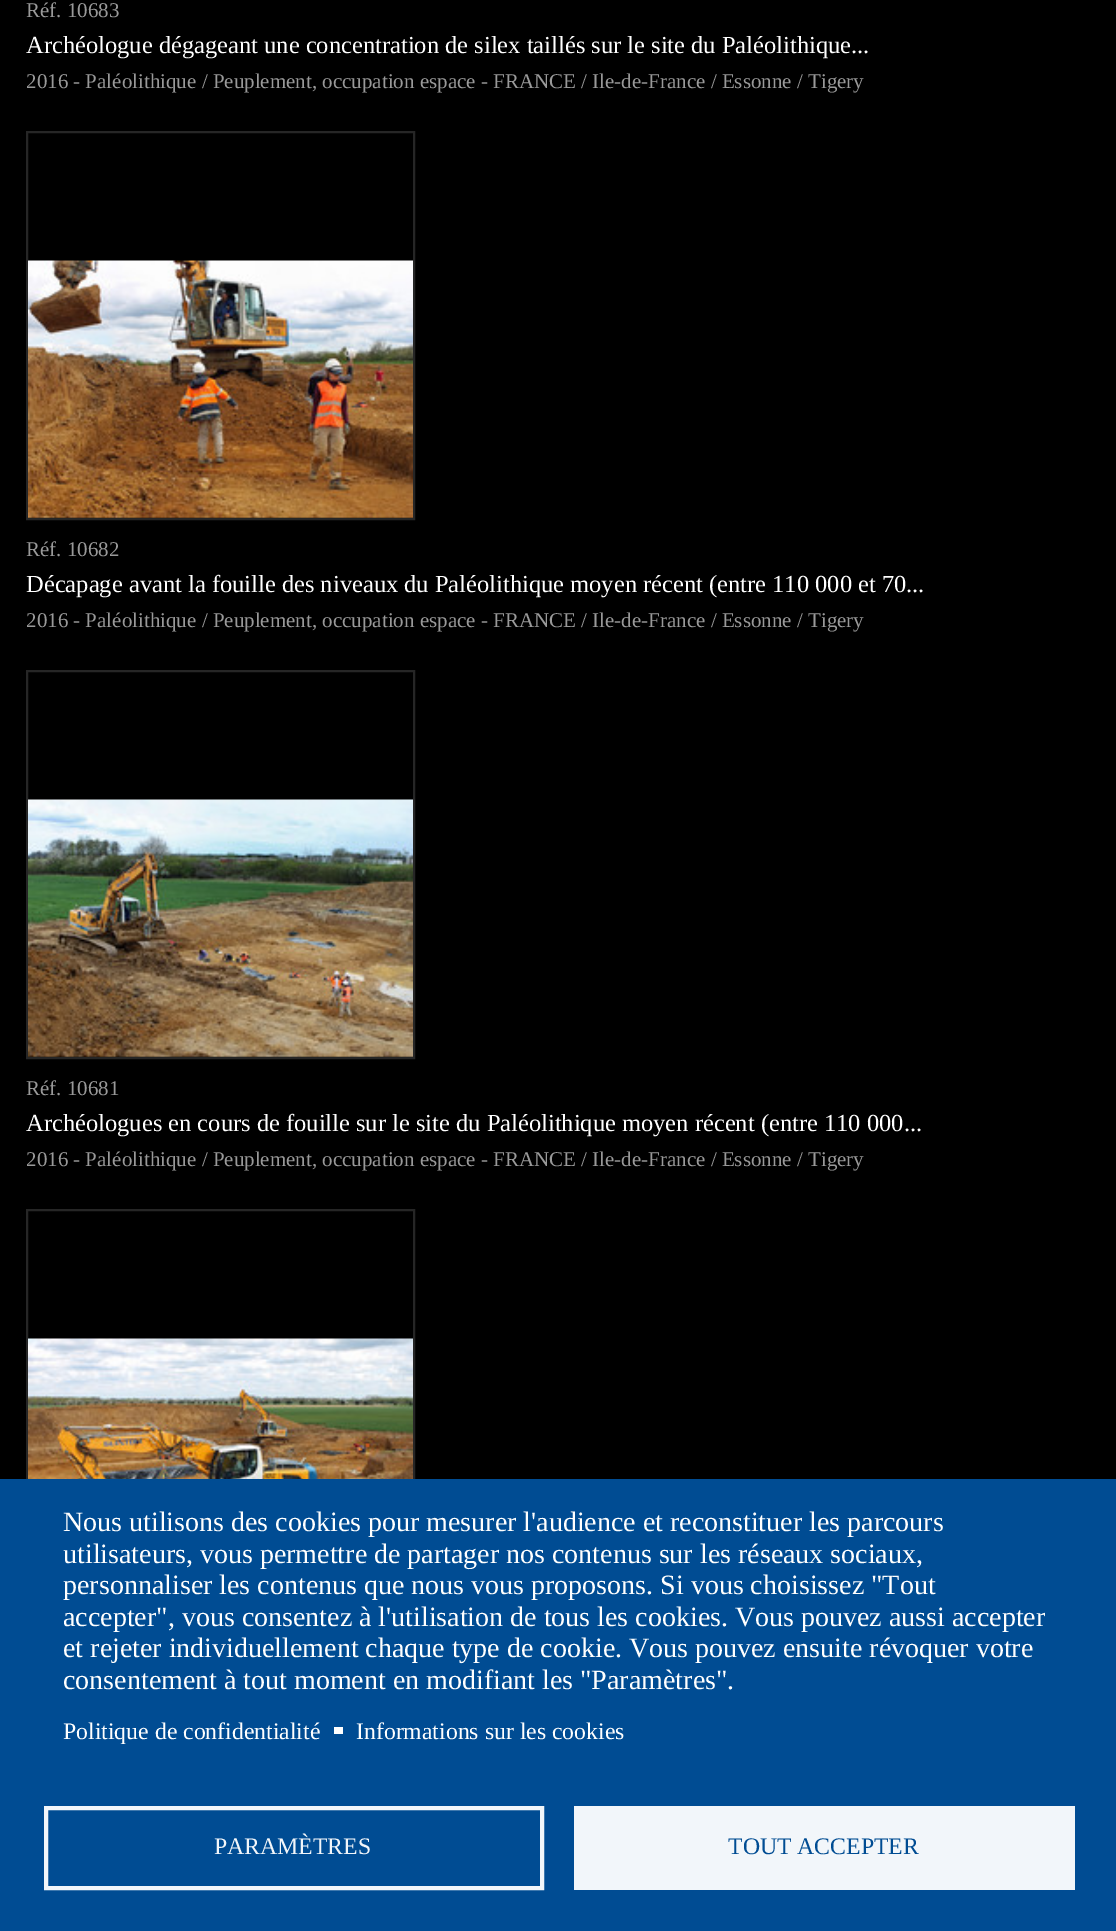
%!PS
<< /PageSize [1116 1931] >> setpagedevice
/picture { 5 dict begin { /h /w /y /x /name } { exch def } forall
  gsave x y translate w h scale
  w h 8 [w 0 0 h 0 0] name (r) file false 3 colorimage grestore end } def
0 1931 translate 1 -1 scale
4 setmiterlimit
0 setgray
0 0 1116 1931 rectfill
/LiberationSerif-Regular [21 0 0 -21 0 0] selectfont
0.6 setgray
26 17 moveto (Réf. 10683) show
/LiberationSerif-Regular [24.5 0 0 -24.5 0 0] selectfont
1 setgray
26 53 moveto (Archéologue dégageant une concentration de silex taillés sur le site du Paléolithique...) show
/LiberationSerif-Regular [21 0 0 -21 0 0] selectfont
0.6 setgray
26 88 moveto (2016 - Paléolithique / Peuplement, occupation espace - FRANCE / Ile-de-France / Essonne / Tigery) show
0.149 setgray
2 setlinewidth
27 132 387 387 rectstroke
(img1.rgb) 28 260 385 258 picture
0.6 setgray
26 556 moveto (Réf. 10682) show
/LiberationSerif-Regular [24.5 0 0 -24.5 0 0] selectfont
1 setgray
26 592 moveto (Décapage avant la fouille des niveaux du Paléolithique moyen récent \(entre 110 000 et 70...) show
/LiberationSerif-Regular [21 0 0 -21 0 0] selectfont
0.6 setgray
26 627 moveto (2016 - Paléolithique / Peuplement, occupation espace - FRANCE / Ile-de-France / Essonne / Tigery) show
0.149 setgray
27 671 387 387 rectstroke
(img2.rgb) 28 799 385 258 picture
0.6 setgray
26 1095 moveto (Réf. 10681) show
/LiberationSerif-Regular [24.5 0 0 -24.5 0 0] selectfont
1 setgray
26 1131 moveto (Archéologues en cours de fouille sur le site du Paléolithique moyen récent \(entre 110 000...) show
/LiberationSerif-Regular [21 0 0 -21 0 0] selectfont
0.6 setgray
26 1166 moveto (2016 - Paléolithique / Peuplement, occupation espace - FRANCE / Ile-de-France / Essonne / Tigery) show
0.149 setgray
27 1210 387 387 rectstroke
(img3.rgb) 28 1338 385 141 picture
0 0.298 0.576 setrgbcolor
0 1479 1116 452 rectfill
/LiberationSerif-Regular [28 0 0 -28 0 0] selectfont
1 setgray
63 1531 moveto (Nous utilisons des cookies pour mesurer l'audience et reconstituer les parcours) show
63 1563 moveto (utilisateurs, vous permettre de partager nos contenus sur les réseaux sociaux,) show
63 1594 moveto (personnaliser les contenus que nous vous proposons. Si vous choisissez "Tout) show
63 1626 moveto (accepter", vous consentez à l'utilisation de tous les cookies. Vous pouvez aussi accepter) show
63 1657 moveto (et rejeter individuellement chaque type de cookie. Vous pouvez ensuite révoquer votre) show
63 1689 moveto (consentement à tout moment en modifiant les "Paramètres".) show
/LiberationSerif-Regular [23.75 0 0 -23.75 0 0] selectfont
63 1739 moveto (Politique de confidentialité) show
334 1727 9 7 rectfill
356 1739 moveto (Informations sur les cookies) show
0.949 0.965 0.98 setrgbcolor
4 setlinewidth
46 1808 496 80 rectstroke
214 1854 moveto (PARAMÈTRES) show
574 1806 501 84 rectfill
0 0.298 0.576 setrgbcolor
728 1854 moveto (TOUT ACCEPTER) show
showpage
